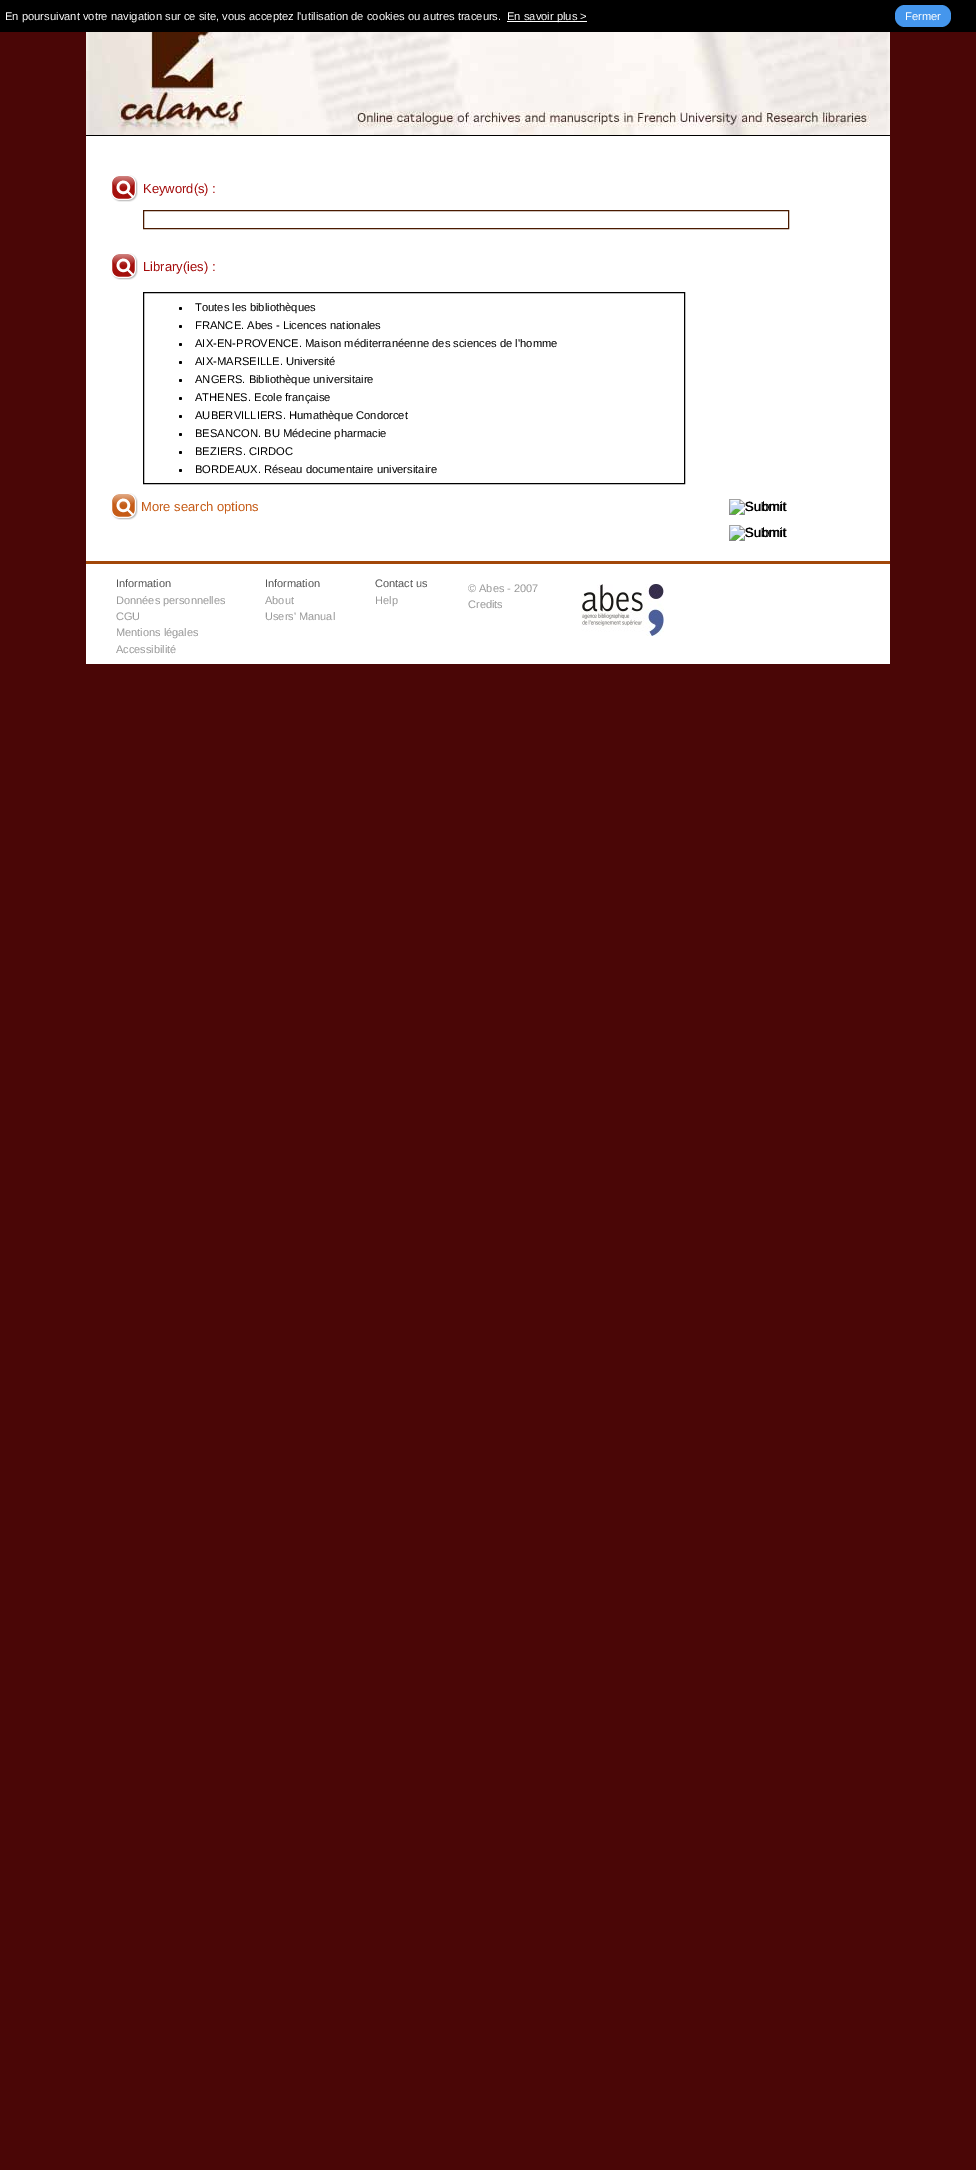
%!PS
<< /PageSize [976 2170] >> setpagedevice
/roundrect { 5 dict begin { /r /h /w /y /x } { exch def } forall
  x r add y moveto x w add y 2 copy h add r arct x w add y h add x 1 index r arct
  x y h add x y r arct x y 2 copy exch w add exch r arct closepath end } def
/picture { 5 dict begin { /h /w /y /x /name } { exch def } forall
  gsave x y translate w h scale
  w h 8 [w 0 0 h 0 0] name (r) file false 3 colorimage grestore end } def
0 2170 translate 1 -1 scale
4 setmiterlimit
0.29 0.024 0.024 setrgbcolor
0 0 976 2170 rectfill
0 setgray
0 0 976 32 rectfill
/LiberationSans-Regular [11.2 0 0 -11.2 0 0] selectfont
1 setgray
5 20 moveto (En poursuivant votre navigation sur ce site, vous acceptez l'utilisation de cookies ou autres traceurs.) show
507 21 80 1 rectfill
507 20 moveto (En savoir plus >) show
0.271 0.588 0.925 setrgbcolor
895 5 56 22 10 roundrect fill
1 setgray
905 20 moveto (Fermer) show
86 136 804 425 rectfill
(img1.rgb) 86 32 804 103 picture
0 setgray
86 135 804 1 rectfill
(img2.rgb) 111 175 27 27 picture
/LiberationSans-Regular [13 0 0 -13 0 0] selectfont
0.643 0.047 0.047 setrgbcolor
143 193 moveto (Keyword\(s\) :) show
0.29 0.102 0 setrgbcolor
143.5 210.5 645 18 rectstroke
(img2.rgb) 111 253 27 27 picture
0.643 0.047 0.047 setrgbcolor
143 271 moveto (Library\(ies\) :) show
0 setgray
143.5 292.5 541 191 rectstroke
newpath 180.5 308.5 1.5 0 360 arc closepath fill
/LiberationSans-Regular [11.2 0 0 -11.2 0 0] selectfont
195 311 moveto (Toutes les bibliothèques) show
newpath 180.5 326.5 1.5 0 360 arc closepath fill
195 329 moveto (FRANCE. Abes - Licences nationales) show
newpath 180.5 344.5 1.5 0 360 arc closepath fill
195 347 moveto (AIX-EN-PROVENCE. Maison méditerranéenne des sciences de l'homme) show
newpath 180.5 362.5 1.5 0 360 arc closepath fill
195 365 moveto (AIX-MARSEILLE. Université) show
newpath 180.5 380.5 1.5 0 360 arc closepath fill
195 383 moveto (ANGERS. Bibliothèque universitaire) show
newpath 180.5 398.5 1.5 0 360 arc closepath fill
195 401 moveto (ATHENES. Ecole française) show
newpath 180.5 416.5 1.5 0 360 arc closepath fill
195 419 moveto (AUBERVILLIERS. Humathèque Condorcet) show
newpath 180.5 434.5 1.5 0 360 arc closepath fill
195 437 moveto (BESANCON. BU Médecine pharmacie) show
newpath 180.5 452.5 1.5 0 360 arc closepath fill
195 455 moveto (BEZIERS. CIRDOC) show
newpath 180.5 470.5 1.5 0 360 arc closepath fill
195 473 moveto (BORDEAUX. Réseau documentaire universitaire) show
(img3.rgb) 111 493 27 27 picture
/LiberationSans-Regular [13 0 0 -13 0 0] selectfont
0.776 0.361 0.09 setrgbcolor
141 511 moveto (More search options) show
(img4.rgb) 729 499 57 16 picture
/LiberationSans-Regular [13.5 0 0 -13.5 0 0] selectfont
0 setgray
745 511 moveto (Submit) show
(img4.rgb) 729 525 57 16 picture
745 537 moveto (Submit) show
1 setgray
86 564 804 100 rectfill
0.635 0.278 0.035 setrgbcolor
86 561 804 3 rectfill
/LiberationSans-Regular [11 0 0 -11 0 0] selectfont
0.333 setgray
116 587 moveto (Information) show
0.6 setgray
116 604 moveto (Données personnelles) show
116 620 moveto (CGU) show
116 636 moveto (Mentions légales) show
116 653 moveto (Accessibilité) show
0.333 setgray
265 587 moveto (Information) show
0.6 setgray
265 604 moveto (About) show
265 620 moveto (Users' Manual) show
0.333 setgray
375 587 moveto (Contact us) show
0.6 setgray
375 604 moveto (Help) show
468 592 moveto (© Abes - 2007) show
468 608 moveto (Credits) show
(img5.rgb) 581 584 83 52 picture
showpage
